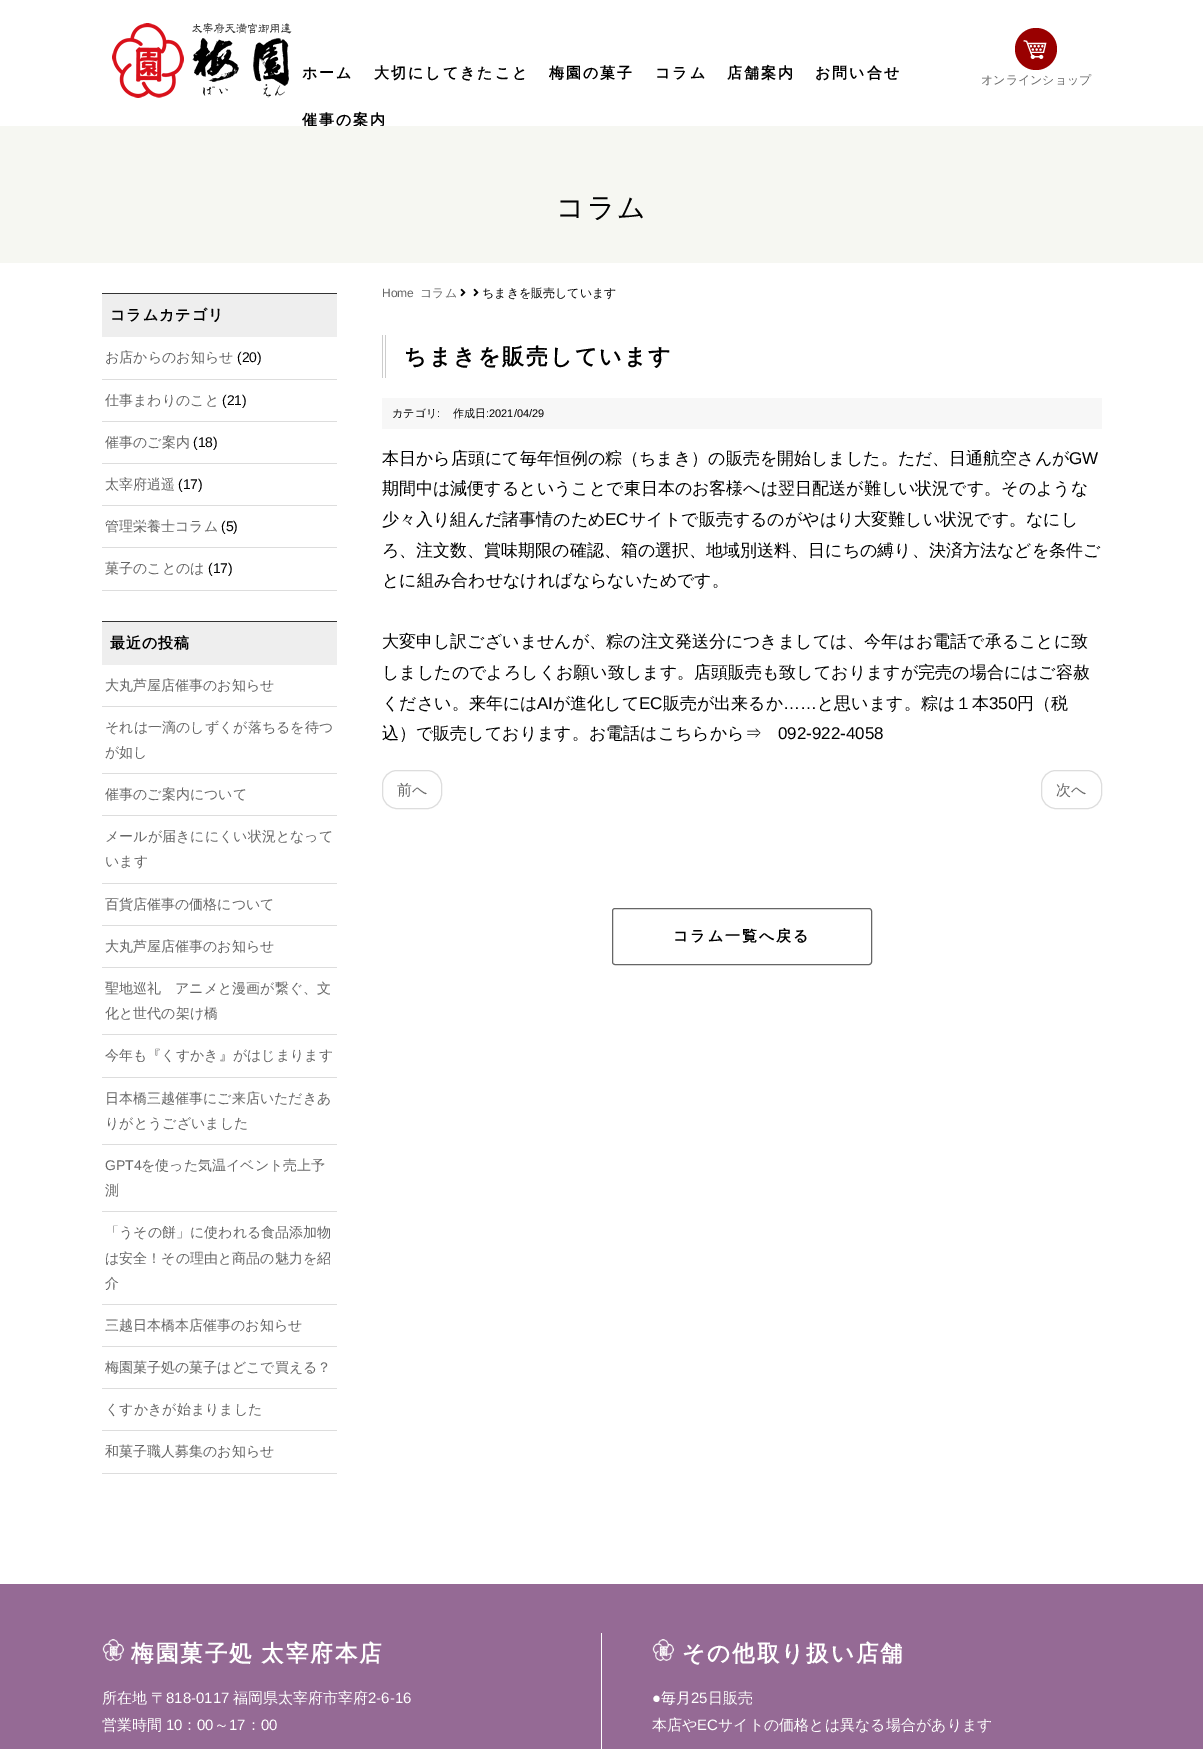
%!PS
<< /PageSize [1203 1749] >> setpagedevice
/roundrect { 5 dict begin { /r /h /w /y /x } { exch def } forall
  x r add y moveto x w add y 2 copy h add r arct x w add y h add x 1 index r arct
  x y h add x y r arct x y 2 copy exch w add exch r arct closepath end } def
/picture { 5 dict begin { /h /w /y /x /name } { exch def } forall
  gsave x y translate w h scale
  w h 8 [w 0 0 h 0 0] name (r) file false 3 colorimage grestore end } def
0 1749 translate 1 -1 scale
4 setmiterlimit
1 setgray
0 0 1203 1749 rectfill
/WenQuanYiZenHei-Bold [15 0 0 -15 0 0] selectfont
0 setgray
302 78 moveto 2 0 (ホーム) ashow
374 78 moveto 2 0 (大切にしてきたこと) ashow
549 78 moveto 2 0 (梅園の菓子) ashow
655 78 moveto 2 0 (コラム) ashow
727 78 moveto 2 0 (店舗案内) ashow
815 78 moveto 2 0 (お問い合せ) ashow
302 125 moveto 2 0 (催事の案内) ashow
(img1.rgb) 112 23 180 75 picture
(img2.rgb) 1015 28 42 42 picture
/WenQuanYiZenHei-Medium [12 0 0 -12 0 0] selectfont
0.4 setgray
981 84 moveto (オンラインショップ) show
0.965 0.969 0.949 setrgbcolor
0 126 1203 137 rectfill
/WenQuanYiZenHei-Medium [28 0 0 -28 0 0] selectfont
0 setgray
556 217 moveto 2 0 (コラム) ashow
0.933 setgray
102 294 235 43 rectfill
0.2 setgray
102 293 235 1 rectfill
/WenQuanYiZenHei-Bold [15 0 0 -15 0 0] selectfont
0 setgray
110 320 moveto 1 0 (コラムカテゴリ) ashow
0.867 setgray
102 379 235 1 rectfill
/WenQuanYiZenHei-Medium [14 0 0 -14 0 0] selectfont
0.4 setgray
105 362 moveto (お店からのお知らせ) show
/LiberationSans-Regular [14 0 0 -14 0 0] selectfont
0 setgray
237 362 moveto (\(20\)) show
0.867 setgray
102 421 235 1 rectfill
/WenQuanYiZenHei-Medium [14 0 0 -14 0 0] selectfont
0.4 setgray
105 405 moveto (仕事まわりのこと) show
/LiberationSans-Regular [14 0 0 -14 0 0] selectfont
0 setgray
222 405 moveto (\(21\)) show
0.867 setgray
102 463 235 1 rectfill
/WenQuanYiZenHei-Medium [14 0 0 -14 0 0] selectfont
0.4 setgray
105 447 moveto (催事のご案内) show
/LiberationSans-Regular [14 0 0 -14 0 0] selectfont
0 setgray
193 447 moveto (\(18\)) show
0.867 setgray
102 505 235 1 rectfill
/WenQuanYiZenHei-Medium [14 0 0 -14 0 0] selectfont
0.4 setgray
105 489 moveto (太宰府逍遥) show
/LiberationSans-Regular [14 0 0 -14 0 0] selectfont
0 setgray
178 489 moveto (\(17\)) show
0.867 setgray
102 547 235 1 rectfill
/WenQuanYiZenHei-Medium [14 0 0 -14 0 0] selectfont
0.4 setgray
105 531 moveto (管理栄養士コラム) show
/LiberationSans-Regular [14 0 0 -14 0 0] selectfont
0 setgray
221 531 moveto (\(5\)) show
0.867 setgray
102 590 235 1 rectfill
/WenQuanYiZenHei-Medium [14 0 0 -14 0 0] selectfont
0.4 setgray
105 573 moveto (菓子のことのは) show
/LiberationSans-Regular [14 0 0 -14 0 0] selectfont
0 setgray
208 573 moveto (\(17\)) show
0.933 setgray
102 622 235 43 rectfill
0.2 setgray
102 621 235 1 rectfill
/WenQuanYiZenHei-Bold [15 0 0 -15 0 0] selectfont
0 setgray
110 648 moveto 1 0 (最近の投稿) ashow
0.867 setgray
102 706 235 1 rectfill
/WenQuanYiZenHei-Medium [14 0 0 -14 0 0] selectfont
0.4 setgray
105 690 moveto (大丸芦屋店催事のお知らせ) show
0.867 setgray
102 773 235 1 rectfill
0.4 setgray
105 732 moveto (それは一滴のしずくが落ちるを待つ) show
105 757 moveto (が如し) show
0.867 setgray
102 815 235 1 rectfill
0.4 setgray
105 799 moveto (催事のご案内について) show
0.867 setgray
102 883 235 1 rectfill
0.4 setgray
105 841 moveto (メールが届きににくい状況となって) show
105 866 moveto (います) show
0.867 setgray
102 925 235 1 rectfill
0.4 setgray
105 909 moveto (百貨店催事の価格について) show
0.867 setgray
102 967 235 1 rectfill
0.4 setgray
105 951 moveto (大丸芦屋店催事のお知らせ) show
0.867 setgray
102 1034 235 1 rectfill
0.4 setgray
105 993 moveto (聖地巡礼　アニメと漫画が繋ぐ、文) show
105 1018 moveto (化と世代の架け橋) show
0.867 setgray
102 1077 235 1 rectfill
0.4 setgray
105 1060 moveto (今年も『くすかき』がはじまります) show
0.867 setgray
102 1144 235 1 rectfill
0.4 setgray
105 1103 moveto (日本橋三越催事にご来店いただきあ) show
105 1128 moveto (りがとうございました) show
0.867 setgray
102 1211 235 1 rectfill
/LiberationSans-Regular [14 0 0 -14 0 0] selectfont
0.4 setgray
105 1170 moveto (GPT4) show
/WenQuanYiZenHei-Medium [14 0 0 -14 0 0] selectfont
141 1170 moveto (を使った気温イベント売上予) show
105 1195 moveto (測) show
0.867 setgray
102 1304 235 1 rectfill
0.4 setgray
105 1237 moveto (「うその餅」に使われる食品添加物) show
105 1263 moveto (は安全！その理由と商品の魅力を紹) show
105 1288 moveto (介) show
0.867 setgray
102 1346 235 1 rectfill
0.4 setgray
105 1330 moveto (三越日本橋本店催事のお知らせ) show
0.867 setgray
102 1388 235 1 rectfill
0.4 setgray
105 1372 moveto (梅園菓子処の菓子はどこで買える？) show
0.867 setgray
102 1430 235 1 rectfill
0.4 setgray
105 1414 moveto (くすかきが始まりました) show
0.867 setgray
102 1473 235 1 rectfill
0.4 setgray
105 1456 moveto (和菓子職人募集のお知らせ) show
/LiberationSans-Regular [12 0 0 -12 0 0] selectfont
382 297 moveto (Home) show
/WenQuanYiZenHei-Medium [12 0 0 -12 0 0] selectfont
420 297 moveto (コラム) show
(img3.rgb) 460 288 6 9 picture
(img3.rgb) 473 288 6 9 picture
0 setgray
482 297 moveto (ちまきを販売しています) show
0.8 setgray
382 335 1 43 rectfill
385 335 1 43 rectfill
/WenQuanYiZenHei-Bold [22 0 0 -22 0 0] selectfont
0 setgray
404 364 moveto 2 0 (ちまきを販売しています) ashow
0.969 setgray
382 398 720 31 rectfill
/WenQuanYiZenHei-Medium [11 0 0 -11 0 0] selectfont
0 setgray
392 417 moveto (カテゴリ) show
/LiberationSans-Regular [11 0 0 -11 0 0] selectfont
437 417 moveto (:) show
/WenQuanYiZenHei-Medium [11 0 0 -11 0 0] selectfont
453 417 moveto (作成日) show
/LiberationSans-Regular [11 0 0 -11 0 0] selectfont
486 417 moveto (:2021/04/29) show
/WenQuanYiZenHei-Medium [17 0 0 -17 0 0] selectfont
382 464 moveto (本日から店頭にて毎年恒例の粽（ちまき）の販売を開始しました。ただ、日通航空さんが) show
/LiberationSans-Regular [17 0 0 -17 0 0] selectfont
1069 464 moveto (GW) show
/WenQuanYiZenHei-Medium [17 0 0 -17 0 0] selectfont
382 494 moveto (期間中は減便するということで東日本のお客様へは翌日配送が難しい状況です。そのような) show
382 525 moveto (少々入り組んだ諸事情のため) show
/LiberationSans-Regular [17 0 0 -17 0 0] selectfont
605 525 moveto (EC) show
/WenQuanYiZenHei-Medium [17 0 0 -17 0 0] selectfont
629 525 moveto (サイトで販売するのがやはり大変難しい状況です。なにし) show
382 556 moveto (ろ、注文数、賞味期限の確認、箱の選択、地域別送料、日にちの縛り、決済方法などを条件ご) show
382 586 moveto (とに組み合わせなければならないためです。) show
382 647 moveto (大変申し訳ございませんが、粽の注文発送分につきましては、今年はお電話で承ることに致) show
382 678 moveto (しましたのでよろしくお願い致します。店頭販売も致しておりますが完売の場合にはご容赦) show
382 709 moveto (ください。来年には) show
/LiberationSans-Regular [17 0 0 -17 0 0] selectfont
537 709 moveto (AI) show
/WenQuanYiZenHei-Medium [17 0 0 -17 0 0] selectfont
553 709 moveto (が進化して) show
/LiberationSans-Regular [17 0 0 -17 0 0] selectfont
639 709 moveto (EC) show
/WenQuanYiZenHei-Medium [17 0 0 -17 0 0] selectfont
663 709 moveto (販売が出来るか) show
/LiberationSans-Regular [17 0 0 -17 0 0] selectfont
783 709 moveto (……) show
/WenQuanYiZenHei-Medium [17 0 0 -17 0 0] selectfont
817 709 moveto (と思います。粽は１本) show
/LiberationSans-Regular [17 0 0 -17 0 0] selectfont
989 709 moveto (350) show
/WenQuanYiZenHei-Medium [17 0 0 -17 0 0] selectfont
1017 709 moveto (円（税) show
382 739 moveto (込）で販売しております。お電話はこちらから⇒) show
/LiberationSans-Regular [17 0 0 -17 0 0] selectfont
778 739 moveto (092-922-4058) show
0.867 setgray
382.5 770.5 59 38 14.5 roundrect stroke
/WenQuanYiZenHei-Medium [15 0 0 -15 0 0] selectfont
0.4 setgray
397 795 moveto (前へ) show
0.867 setgray
1041.5 770.5 60 38 14.5 roundrect stroke
0.4 setgray
1056 795 moveto (次へ) show
612.5 908.5 259 56 2.5 roundrect stroke
/WenQuanYiZenHei-Bold [15 0 0 -15 0 0] selectfont
0 setgray
673 941 moveto 2 0 (コラム一覧へ戻る) ashow
0.584 0.416 0.584 setrgbcolor
0 1584 1203 165 rectfill
(img4.rgb) 102 1639 22 22 picture
/WenQuanYiZenHei-Bold [22.5 0 0 -22.5 0 0] selectfont
1 setgray
131 1661 moveto -1 0 32 2 0 (梅園菓子処 太宰府本店) awidthshow
/WenQuanYiZenHei-Medium [15 0 0 -15 0 0] selectfont
102 1703 moveto (所在地 〒) show
/LiberationSans-Regular [15 0 0 -15 0 0] selectfont
166 1703 moveto (818-0117) show
/WenQuanYiZenHei-Medium [15 0 0 -15 0 0] selectfont
233 1703 moveto (福岡県太宰府市宰府) show
/LiberationSans-Regular [15 0 0 -15 0 0] selectfont
368 1703 moveto (2-6-16) show
/WenQuanYiZenHei-Medium [15 0 0 -15 0 0] selectfont
102 1730 moveto (営業時間) show
/LiberationSans-Regular [15 0 0 -15 0 0] selectfont
166 1730 moveto (10) show
/WenQuanYiZenHei-Medium [15 0 0 -15 0 0] selectfont
182 1730 moveto (：) show
/LiberationSans-Regular [15 0 0 -15 0 0] selectfont
197 1730 moveto (00) show
/WenQuanYiZenHei-Medium [15 0 0 -15 0 0] selectfont
214 1730 moveto (～) show
/LiberationSans-Regular [15 0 0 -15 0 0] selectfont
229 1730 moveto (17) show
/WenQuanYiZenHei-Medium [15 0 0 -15 0 0] selectfont
246 1730 moveto (：) show
/LiberationSans-Regular [15 0 0 -15 0 0] selectfont
261 1730 moveto (00) show
601 1633 1 116 rectfill
(img4.rgb) 652 1639 22 22 picture
/WenQuanYiZenHei-Bold [22.5 0 0 -22.5 0 0] selectfont
682 1661 moveto 2 0 (その他取り扱い店舗) ashow
/LiberationSans-Regular [15 0 0 -15 0 0] selectfont
652 1703 moveto (●) show
/WenQuanYiZenHei-Medium [15 0 0 -15 0 0] selectfont
661 1703 moveto (毎月) show
/LiberationSans-Regular [15 0 0 -15 0 0] selectfont
691 1703 moveto (25) show
/WenQuanYiZenHei-Medium [15 0 0 -15 0 0] selectfont
708 1703 moveto (日販売) show
652 1730 moveto (本店や) show
/LiberationSans-Regular [15 0 0 -15 0 0] selectfont
697 1730 moveto (EC) show
/WenQuanYiZenHei-Medium [15 0 0 -15 0 0] selectfont
718 1730 moveto (サイトの価格とは異なる場合があります) show
showpage
